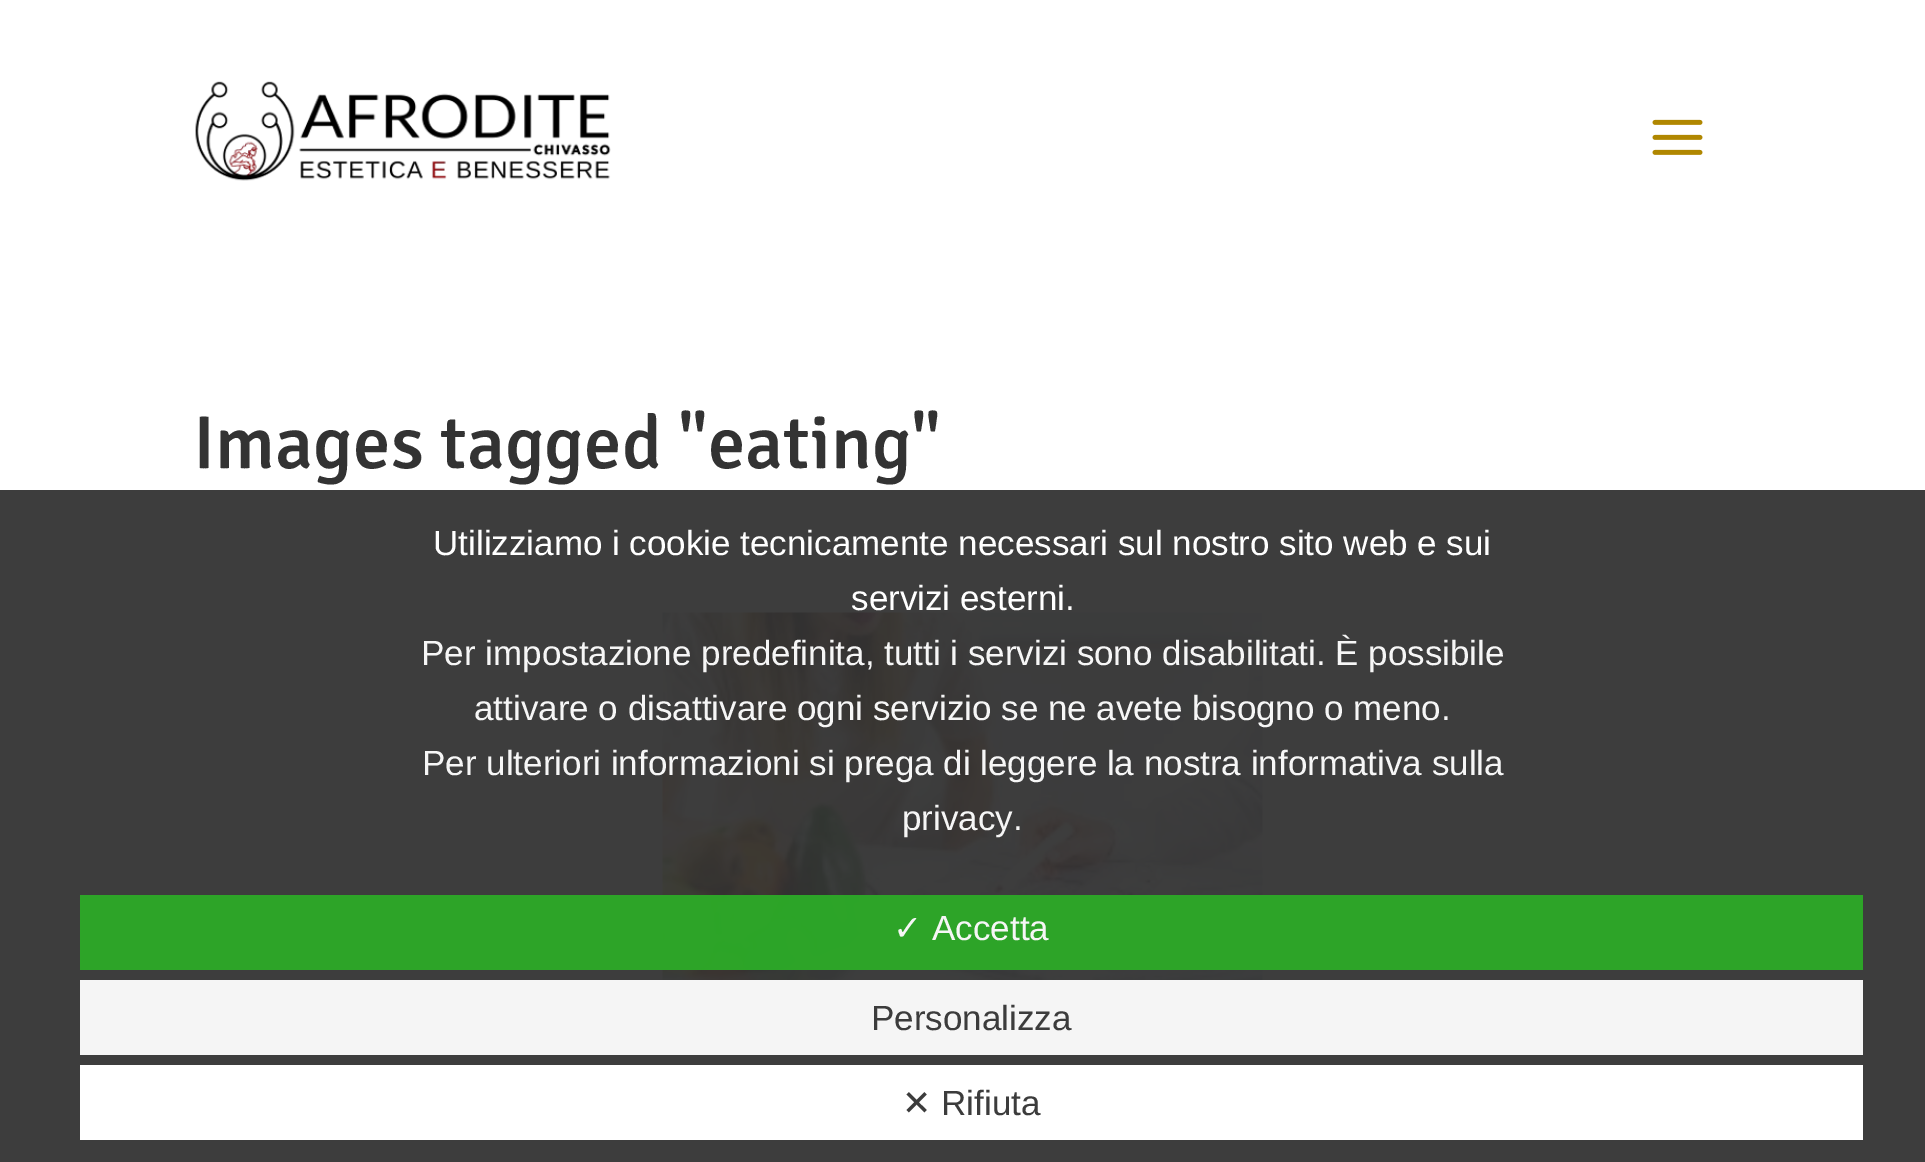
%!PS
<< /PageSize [1925 1162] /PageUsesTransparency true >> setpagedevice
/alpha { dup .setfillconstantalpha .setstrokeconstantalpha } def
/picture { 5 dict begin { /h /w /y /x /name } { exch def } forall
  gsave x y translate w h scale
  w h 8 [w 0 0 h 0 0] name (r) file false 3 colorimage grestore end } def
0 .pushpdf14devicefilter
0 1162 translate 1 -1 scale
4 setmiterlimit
1 setgray
0 0 1925 1162 rectfill
0.239 setgray
0 490 1925 672 rectfill
(img1.rgb) 195 81 416 100 picture
(img2.rgb) 1652 119 51 36 picture
/Signika-Light [75 0 0 -75 0 0] selectfont
0.2 setgray
193 468 moveto (Images tagged "eating") show
(img3.rgb) 662 612 601 401 picture
/LiberationSans-Regular [35 0 0 -35 0 0] selectfont
1 setgray
433 555 moveto (Utilizziamo i cookie tecnicamente necessari sul nostro sito web e sui) show
851 610 moveto (servizi esterni.) show
0.965 setgray
421 665 moveto (Per impostazione predefinita, tutti i servizi sono disabilitati. È possibile) show
474 720 moveto (attivare o disattivare ogni servizio se ne avete bisogno o meno.) show
422 775 moveto (Per ulteriori informazioni si prega di leggere la nostra informativa sulla) show
902 830 moveto (privacy.) show
0.95 alpha
0.173 0.667 0.153 setrgbcolor
80 895 1783 75 rectfill
/DejaVuSans-Regular [35 0 0 -35 0 0] selectfont
1 alpha
0.965 setgray
893 940 moveto (✓) show
/LiberationSans-Regular [35 0 0 -35 0 0] selectfont
932 940 moveto (Accetta) show
0.95 alpha
1 setgray
80 980 1783 75 rectfill
1 alpha
0.235 setgray
871 1030 moveto (Personalizza) show
1 setgray
80 1065 1783 75 rectfill
/DejaVuSans-Regular [35 0 0 -35 0 0] selectfont
0.235 setgray
902 1115 moveto (✕) show
/LiberationSans-Regular [35 0 0 -35 0 0] selectfont
941 1115 moveto (Rifiuta) show
.poppdf14devicefilter showpage
